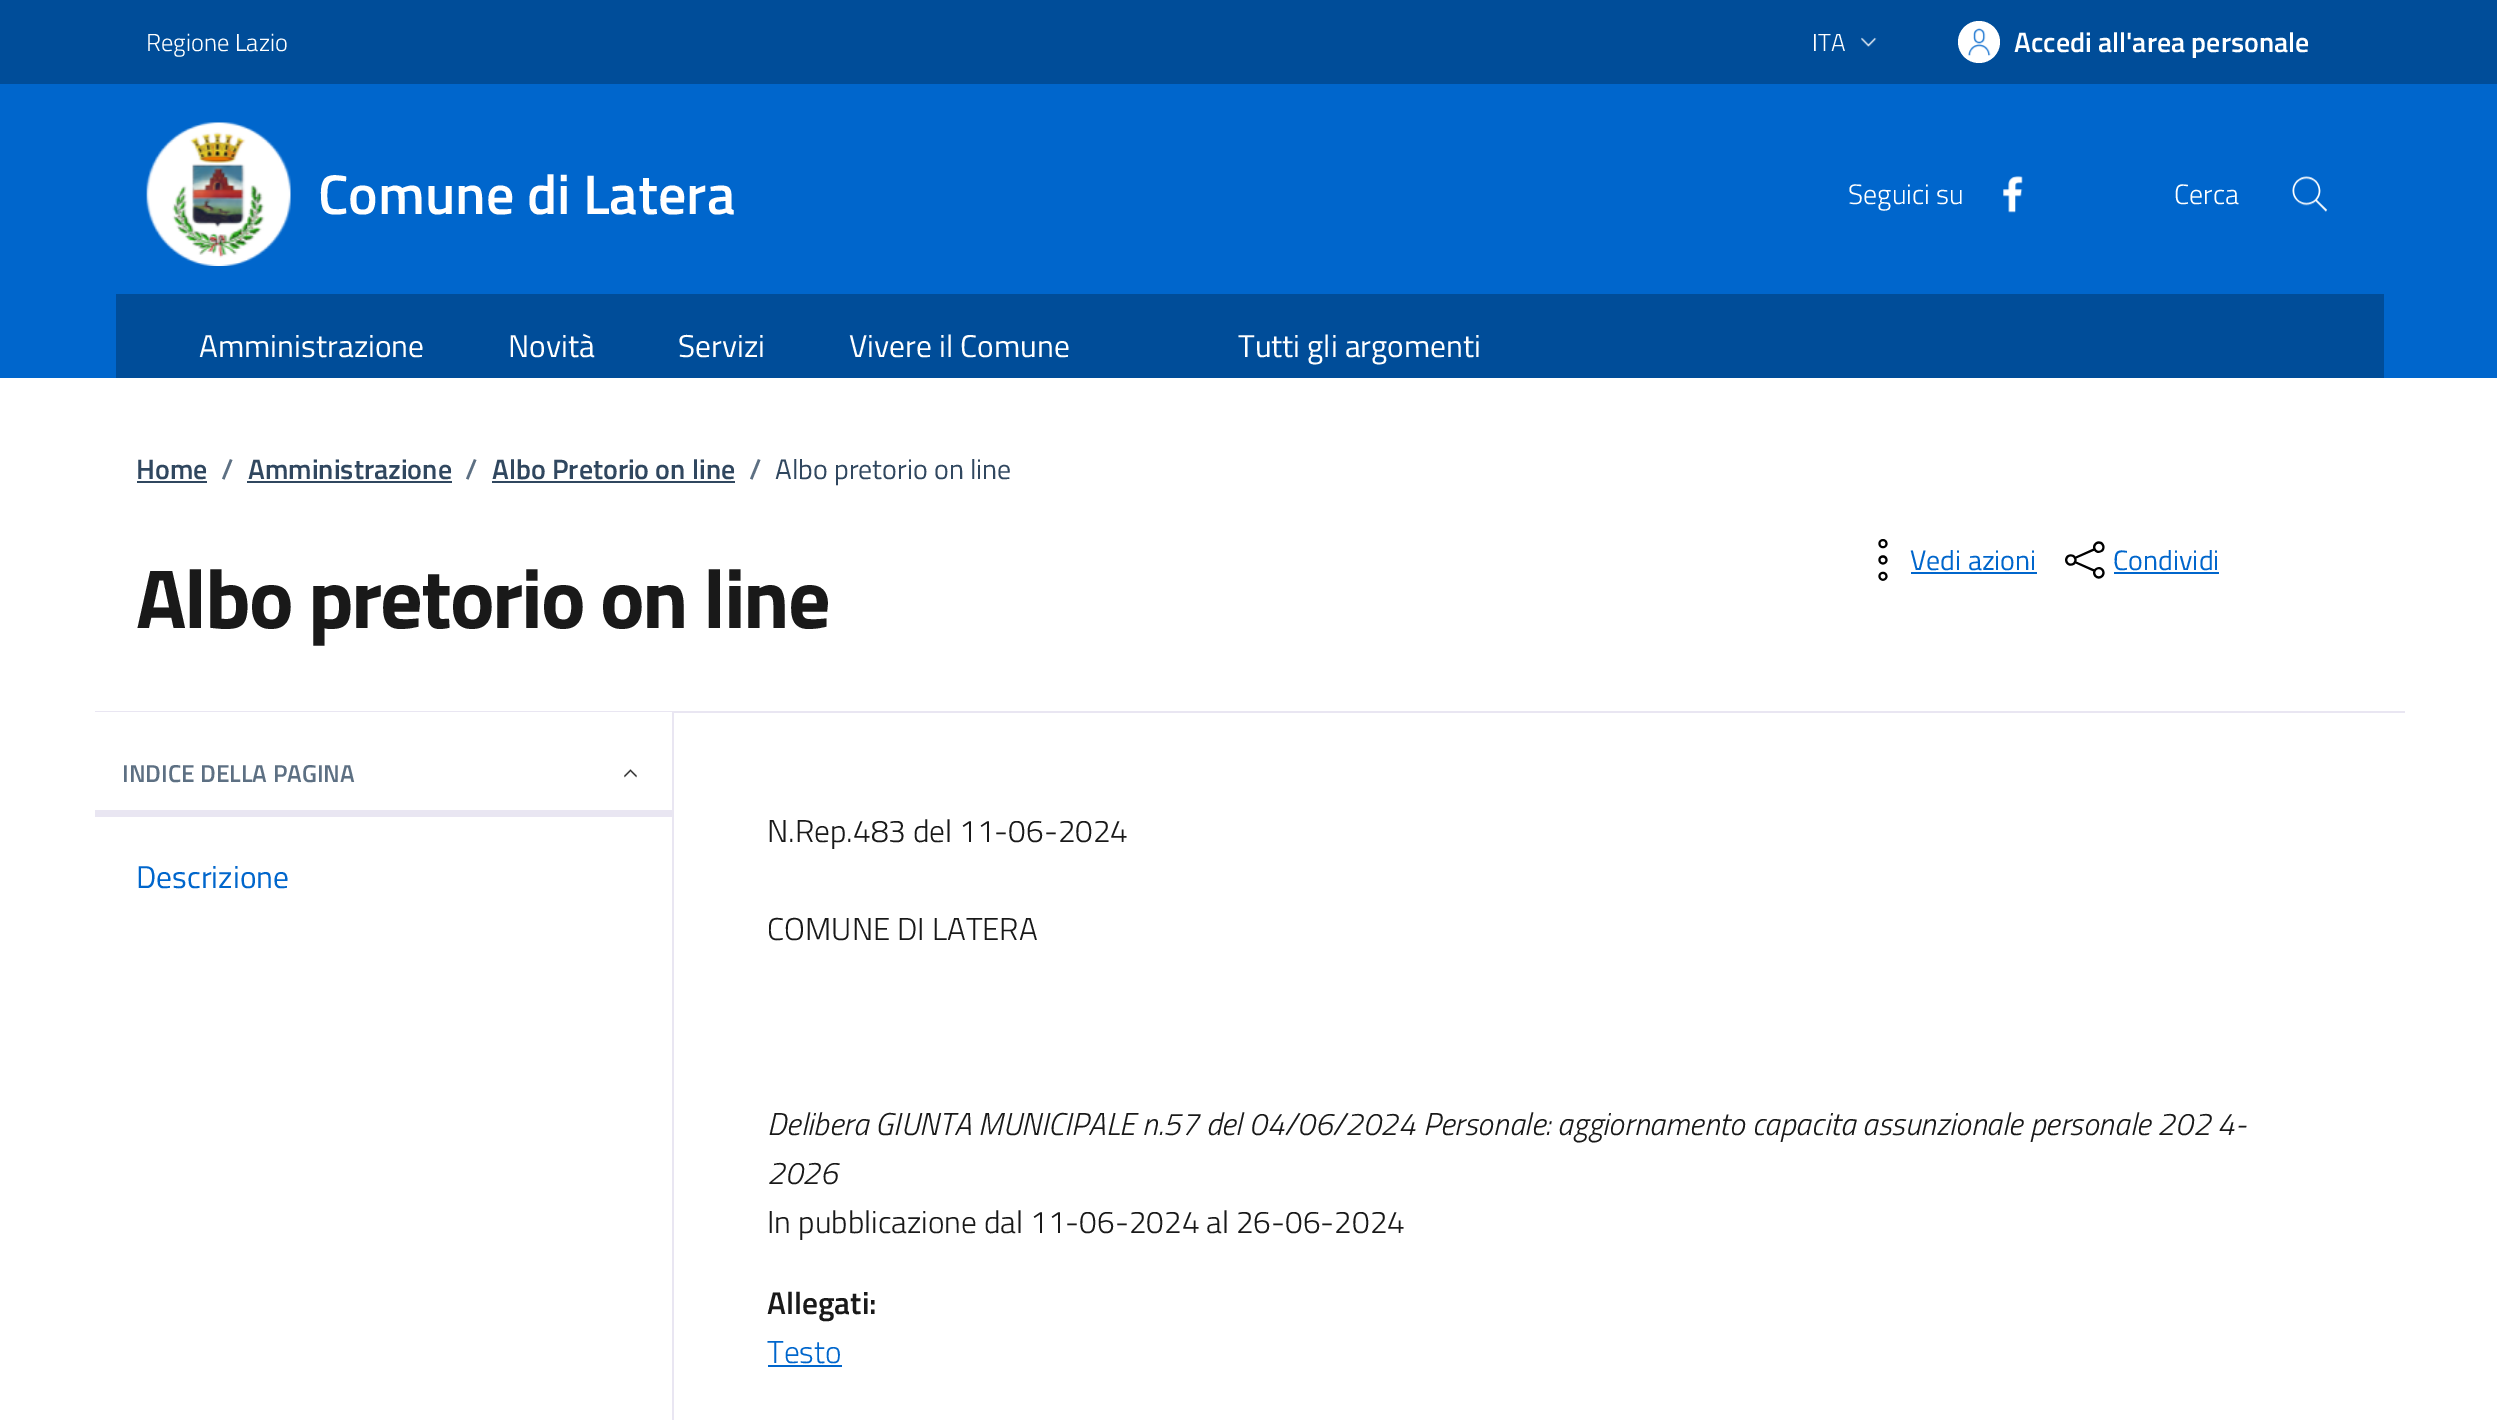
%!PS
<< /PageSize [2497 1420] >> setpagedevice
/picture { 5 dict begin { /h /w /y /x /name } { exch def } forall
  gsave x y translate w h scale
  w h 8 [w 0 0 h 0 0] name (r) file false 3 colorimage grestore end } def
0 1420 translate 1 -1 scale
4 setmiterlimit
1 setgray
0 0 2497 1420 rectfill
0 0.302 0.6 setrgbcolor
0 0 2497 84 rectfill
/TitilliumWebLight-Light [24.5 0 0 -24.5 0 0] selectfont
1 setgray
146 51 moveto (Regione Lazio) show
1812 51 moveto (ITA) show
(img1.rgb) 1861 37 16 10 picture
newpath 1979 42 21 0 360 arc closepath fill
(img2.rgb) 1968 28 23 28 picture
/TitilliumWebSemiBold-SemiBold [28 0 0 -28 0 0] selectfont
2014 52 moveto (Accedi all'area personale) show
0 0.4 0.8 setrgbcolor
0 84 2497 294 rectfill
(img3.rgb) 146 122 145 144 picture
/TitilliumWebSemiBold-SemiBold [56 0 0 -56 0 0] selectfont
1 setgray
318 214 moveto (Comune di Latera) show
/TitilliumWebLight-Light [28 0 0 -28 0 0] selectfont
1848 204 moveto (Seguici su) show
(img4.rgb) 2003 176 20 37 picture
2174 204 moveto (Cerca) show
(img5.rgb) 2292 176 36 36 picture
0 0.302 0.6 setrgbcolor
116 294 2268 84 rectfill
/TitilliumWeb-Regular [31.5 0 0 -31.5 0 0] selectfont
1 setgray
199 357 moveto (Amministrazione) show
508 357 moveto (Novità) show
678 357 moveto (Servizi) show
849 357 moveto (Vivere il Comune) show
1238 357 moveto (Tutti gli argomenti) show
/TitilliumWebSemiBold-SemiBold [28 0 0 -28 0 0] selectfont
0.188 0.278 0.373 setrgbcolor
136 479 moveto (Home) show
137 481 70 2 rectfill
0.365 0.439 0.514 setrgbcolor
221 479 moveto (/) show
0.188 0.278 0.373 setrgbcolor
248 479 moveto (Amministrazione) show
247 481 205 2 rectfill
0.365 0.439 0.514 setrgbcolor
465 479 moveto (/) show
0.188 0.278 0.373 setrgbcolor
492 479 moveto (Albo Pretorio on line) show
492 481 243 2 rectfill
0.365 0.439 0.514 setrgbcolor
749 479 moveto (/) show
/TitilliumWeb-Regular [28 0 0 -28 0 0] selectfont
0.188 0.278 0.373 setrgbcolor
775 479 moveto (Albo pretorio on line) show
(img6.rgb) 1878 539 10 42 picture
0 0.4 0.8 setrgbcolor
1910 570 moveto (Vedi azioni) show
1911 572 126 2 rectfill
(img7.rgb) 2065 541 40 38 picture
2113 570 moveto (Condividi) show
2114 572 105 2 rectfill
/TitilliumWeb-Bold [84 0 0 -84 0 0] selectfont
0.098 setgray
136 628 moveto -2.1 0 (Albo pretorio on line) ashow
0.914 0.902 0.949 setrgbcolor
95 711 2310 2 rectfill
1 setgray
95 712 577 1 rectfill
/TitilliumWebSemiBold-SemiBold [24.5 0 0 -24.5 0 0] selectfont
0.365 0.439 0.514 setrgbcolor
122 782 moveto (INDICE DELLA PAGINA) show
(img8.rgb) 624 769 13 9 picture
0.914 0.902 0.949 setrgbcolor
95 810 577 7 rectfill
/TitilliumWeb-Regular [31.5 0 0 -31.5 0 0] selectfont
0 0.4 0.8 setrgbcolor
136 888 moveto (Descrizione) show
0.914 0.902 0.949 setrgbcolor
672 712 2 708 rectfill
/TitilliumWebLight-Light [31.5 0 0 -31.5 0 0] selectfont
0.098 setgray
767 842 moveto (N.Rep.483 del 11-06-2024) show
767 940 moveto (COMUNE DI LATERA) show
/TitilliumWebLight-LightItalic [31.5 0 0 -31.5 0 0] selectfont
767 1135 moveto (Delibera GIUNTA MUNICIPALE n.57 del 04/06/2024 Personale: aggiornamento capacita assunzionale personale 202 4-) show
767 1184 moveto (2026) show
/TitilliumWebLight-Light [31.5 0 0 -31.5 0 0] selectfont
767 1233 moveto (In pubblicazione dal 11-06-2024 al 26-06-2024) show
/TitilliumWebSemiBold-SemiBold [31.5 0 0 -31.5 0 0] selectfont
767 1314 moveto (Allegati:) show
/TitilliumWebLight-Light [31.5 0 0 -31.5 0 0] selectfont
0 0.4 0.8 setrgbcolor
767 1363 moveto (Testo) show
768 1365 74 2 rectfill
showpage
